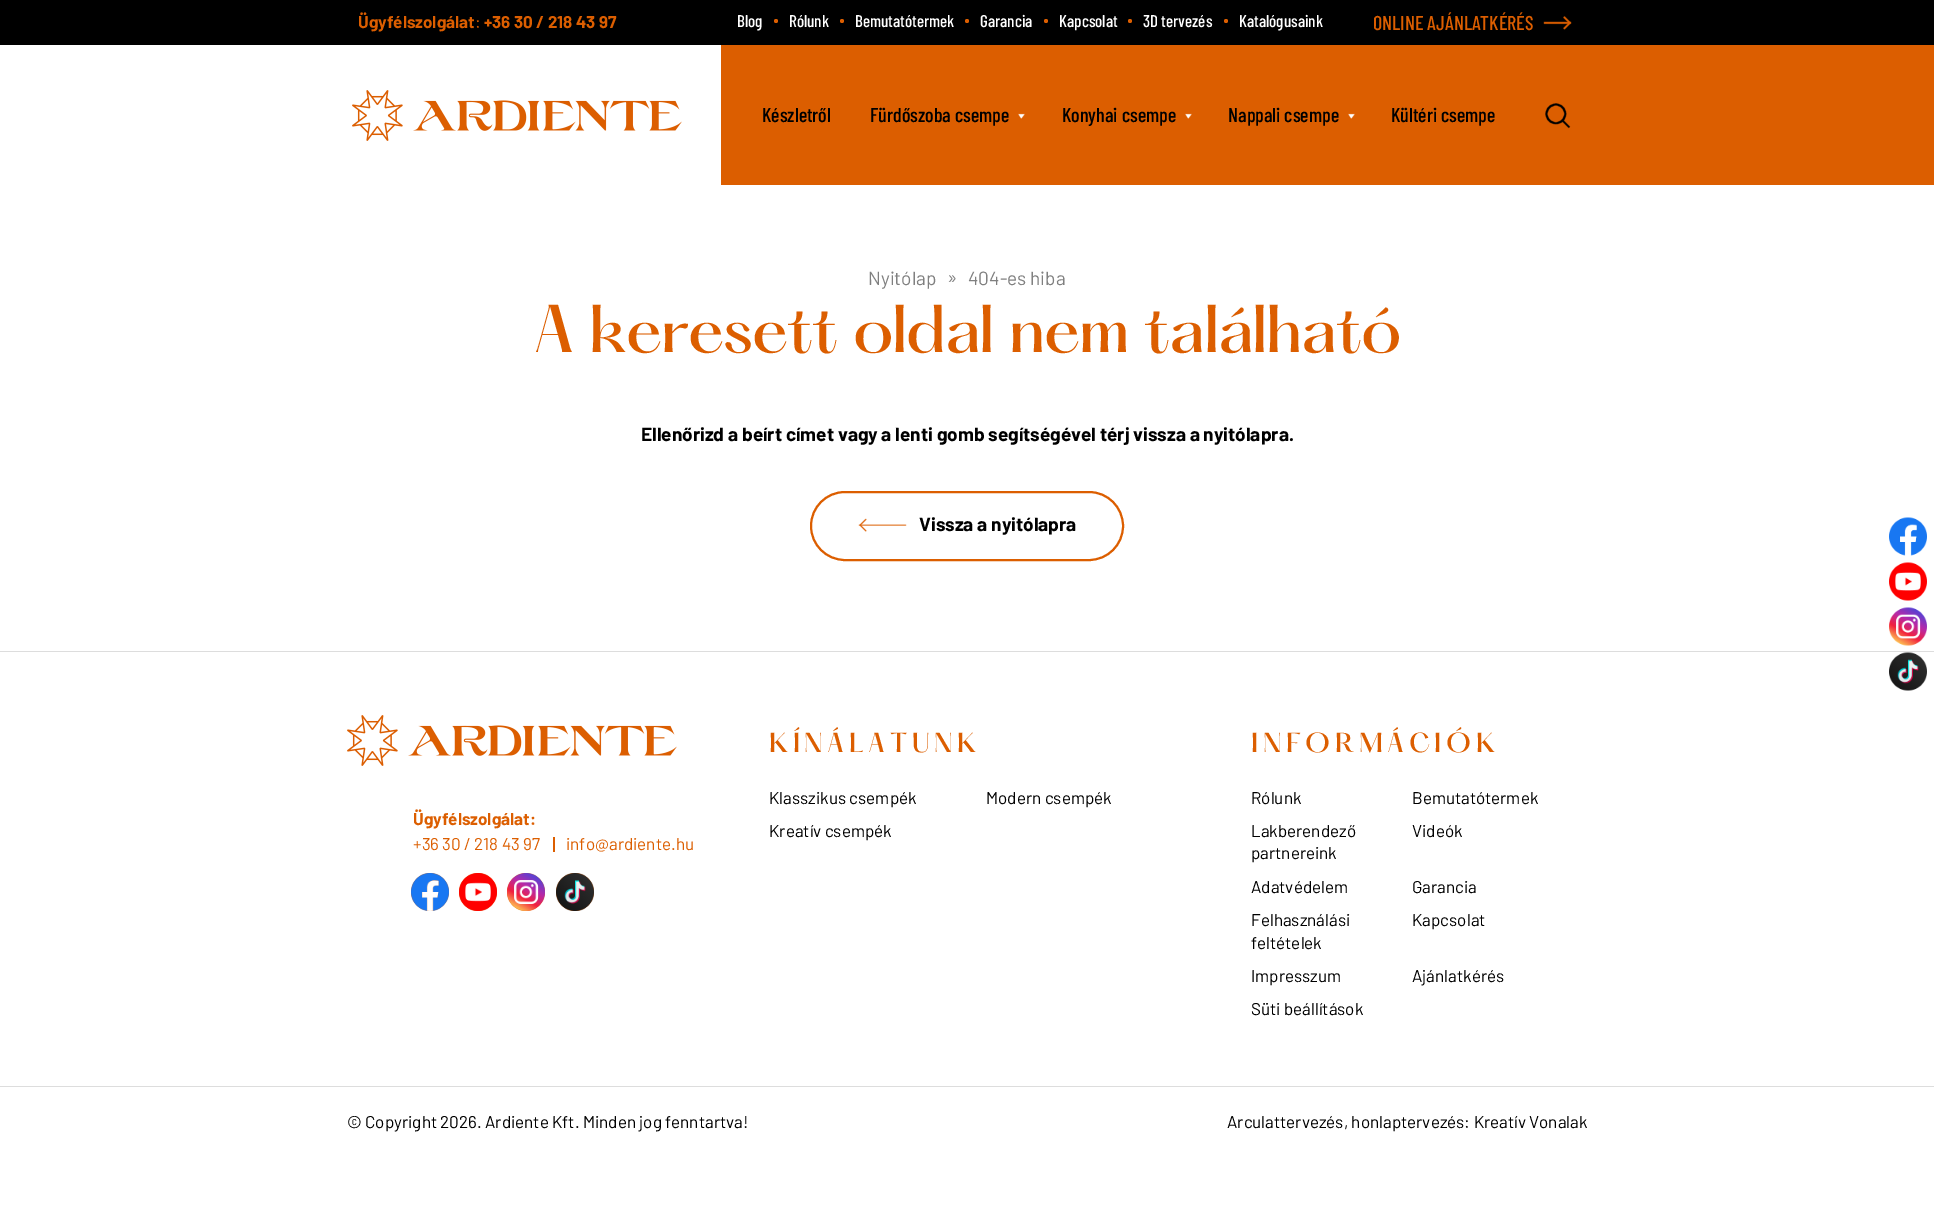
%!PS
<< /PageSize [1934 1208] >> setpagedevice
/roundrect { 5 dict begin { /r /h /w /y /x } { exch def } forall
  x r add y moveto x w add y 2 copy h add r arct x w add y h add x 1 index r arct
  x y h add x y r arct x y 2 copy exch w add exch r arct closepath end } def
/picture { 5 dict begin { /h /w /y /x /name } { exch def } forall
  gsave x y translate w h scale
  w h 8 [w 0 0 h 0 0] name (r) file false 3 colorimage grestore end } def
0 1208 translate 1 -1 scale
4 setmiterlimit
1 setgray
0 0 1934 1208 rectfill
0 setgray
0 0 1934 45 rectfill
/Barlow-Bold [17 0 0 -17 0 0] selectfont
0.863 0.369 0 setrgbcolor
358 28 moveto (Ügyfélszolgálat) show
/Barlow-Regular [17 0 0 -17 0 0] selectfont
475 28 moveto (:) show
/Barlow-Bold [17 0 0 -17 0 0] selectfont
484 28 moveto (+36 30 / 218 43 97) show
/BarlowCondensed-Medium [17 0 0 -17 0 0] selectfont
1 setgray
737 27 moveto (Blog) show
0.863 0.369 0 setrgbcolor
newpath 776 21 2 0 360 arc closepath fill
1 setgray
789 27 moveto (Rólunk) show
0.863 0.369 0 setrgbcolor
newpath 842 21 2 0 360 arc closepath fill
1 setgray
855 27 moveto (Bemutatótermek) show
0.863 0.369 0 setrgbcolor
newpath 967 21 2 0 360 arc closepath fill
1 setgray
980 27 moveto (Garancia) show
0.863 0.369 0 setrgbcolor
newpath 1046 21 2 0 360 arc closepath fill
1 setgray
1059 27 moveto (Kapcsolat) show
0.863 0.369 0 setrgbcolor
newpath 1130 21 2 0 360 arc closepath fill
1 setgray
1143 27 moveto (3D tervezés) show
0.863 0.369 0 setrgbcolor
newpath 1226 21 2 0 360 arc closepath fill
1 setgray
1239 27 moveto (Katalógusaink) show
/BarlowCondensed-Medium [20 0 0 -20 0 0] selectfont
0.863 0.369 0 setrgbcolor
1373 30 moveto (ONLINE AJÁNLATKÉRÉS) show
(img1.rgb) 1543 16 29 14 picture
721 45 1213 140 rectfill
(img2.rgb) 352 90 330 51 picture
0 setgray
762 122 moveto (Készletről) show
870 122 moveto (Fürdőszoba csempe) show
(img3.rgb) 1018 113 7 6 picture
1062 122 moveto (Konyhai csempe) show
(img3.rgb) 1185 113 7 6 picture
1228 122 moveto (Nappali csempe) show
(img3.rgb) 1348 113 7 6 picture
1391 122 moveto (Kültéri csempe) show
(img4.rgb) 1545 103 26 26 picture
/Barlow-Regular [19 0 0 -19 0 0] selectfont
0.502 setgray
868 285 moveto (Nyitólap) show
947 284 moveto (») show
968 285 moveto (404-es hiba) show
/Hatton-Medium [59 0 0 -59 0 0] selectfont
0.863 0.369 0 setrgbcolor
533 352 moveto -1.4 0 (A keresett oldal nem található) ashow
/Barlow-Bold [19 0 0 -19 0 0] selectfont
0 setgray
641 441 moveto (Ellenőrizd a beírt címet vagy a lenti gomb segítségével térj vissza a nyitólapra.) show
0.863 0.369 0 setrgbcolor
2 setlinewidth
811 492 312 68 34 roundrect stroke
(img5.rgb) 858 518 49 14 picture
0 setgray
919 531 moveto (Vissza a nyitólapra) show
0.867 setgray
0 651 1934 1 rectfill
(img6.rgb) 1889 517 38 39 picture
(img7.rgb) 1889 562 38 39 picture
(img8.rgb) 1889 607 38 39 picture
(img9.rgb) 1889 652 38 39 picture
(img2.rgb) 347 715 330 51 picture
/Barlow-Bold [17 0 0 -17 0 0] selectfont
0.863 0.369 0 setrgbcolor
413 825 moveto (Ügyfélszolgálat:) show
/Barlow-Regular [17 0 0 -17 0 0] selectfont
413 850 moveto (+36 30 / 218 43 97) show
553 837 2 15 rectfill
566 850 moveto (info@ardiente.hu) show
(img10.rgb) 411 873 38 38 picture
(img11.rgb) 459 873 38 38 picture
(img12.rgb) 507 873 38 38 picture
(img13.rgb) 556 873 38 38 picture
/Hatton-Medium [24 0 0 -24 0 0] selectfont
769 752 moveto 4.5 0 (KÍNÁLATUNK) ashow
/Barlow-Regular [17 0 0 -17 0 0] selectfont
0 setgray
769 804 moveto (Klasszikus csempék) show
986 804 moveto (Modern csempék) show
769 837 moveto (Kreatív csempék) show
/Hatton-Medium [24 0 0 -24 0 0] selectfont
0.863 0.369 0 setrgbcolor
1251 752 moveto 4.5 0 (INFORMÁCIÓK) ashow
/Barlow-Regular [17 0 0 -17 0 0] selectfont
0 setgray
1251 804 moveto (Rólunk) show
1412 804 moveto (Bemutatótermek) show
1251 837 moveto (Lakberendező) show
1251 859 moveto (partnereink) show
1412 837 moveto (Videók) show
1251 893 moveto (Adatvédelem) show
1412 893 moveto (Garancia) show
1251 926 moveto (Felhasználási) show
1251 949 moveto (feltételek) show
1412 926 moveto (Kapcsolat) show
1251 982 moveto (Impresszum) show
1412 982 moveto (Ajánlatkérés) show
1251 1015 moveto (Süti beállítások) show
0.867 setgray
0 1086 1934 1 rectfill
0 setgray
347 1128 moveto (© Copyright 2026. Ardiente Kft. Minden jog fenntartva!) show
1227 1128 moveto (Arculattervezés, honlaptervezés: Kreatív Vonalak) show
showpage
